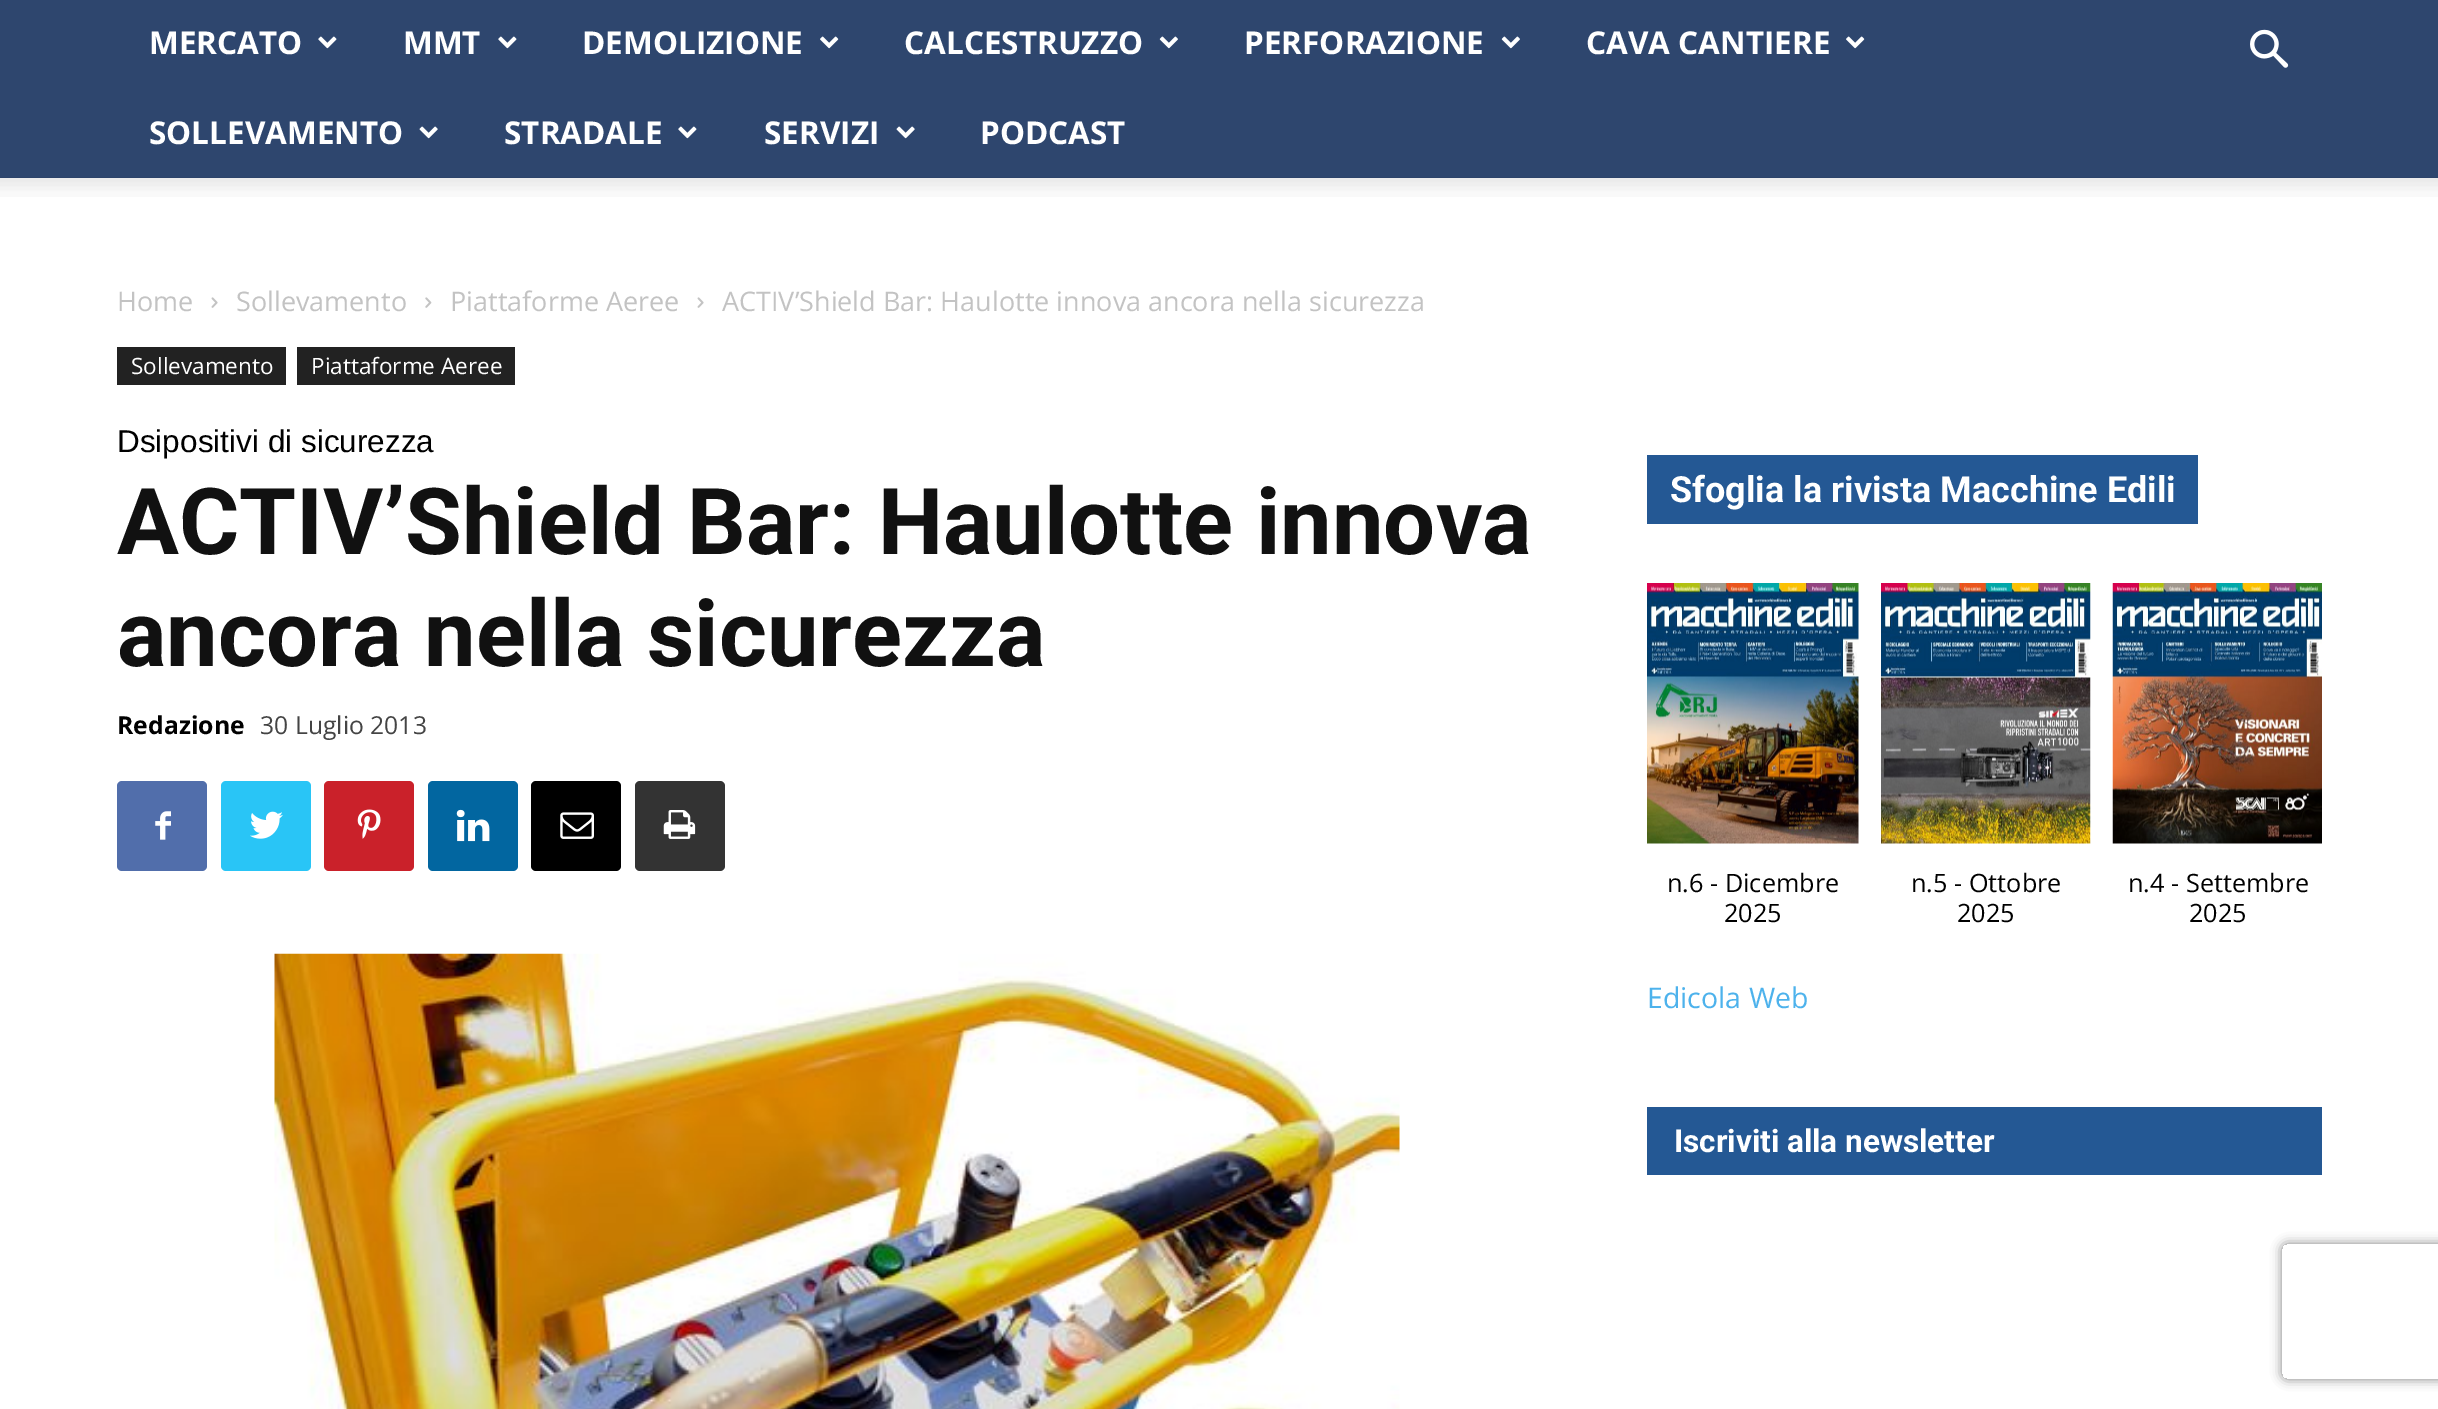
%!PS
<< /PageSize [2438 1409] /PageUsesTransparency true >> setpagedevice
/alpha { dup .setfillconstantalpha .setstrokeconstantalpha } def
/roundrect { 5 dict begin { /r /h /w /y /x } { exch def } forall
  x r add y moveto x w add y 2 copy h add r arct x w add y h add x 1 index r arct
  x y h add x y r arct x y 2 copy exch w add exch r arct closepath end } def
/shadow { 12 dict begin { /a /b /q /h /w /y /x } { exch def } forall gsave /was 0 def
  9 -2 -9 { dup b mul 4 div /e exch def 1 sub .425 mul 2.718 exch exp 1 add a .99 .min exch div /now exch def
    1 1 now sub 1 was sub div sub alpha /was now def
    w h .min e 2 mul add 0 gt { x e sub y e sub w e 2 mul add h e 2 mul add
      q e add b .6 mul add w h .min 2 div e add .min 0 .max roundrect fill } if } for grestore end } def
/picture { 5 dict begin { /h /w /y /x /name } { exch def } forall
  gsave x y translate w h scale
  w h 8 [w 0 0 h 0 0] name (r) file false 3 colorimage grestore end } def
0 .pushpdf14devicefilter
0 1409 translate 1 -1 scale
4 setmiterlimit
1 setgray
0 0 2438 1409 rectfill
0.18 0.275 0.431 setrgbcolor
0 0 2438 178 rectfill
/OpenSans-Bold [31.5 0 0 -31.5 0 0] selectfont
1 setgray
149 54 moveto (MERCATO) show
(img1.rgb) 318 36 19 13 picture
403 54 moveto (MMT) show
(img1.rgb) 498 36 19 13 picture
582 54 moveto (DEMOLIZIONE) show
(img2.rgb) 820 36 19 13 picture
904 54 moveto (CALCESTRUZZO) show
(img3.rgb) 1159 36 19 13 picture
1244 54 moveto (PERFORAZIONE) show
(img3.rgb) 1501 36 19 13 picture
1586 54 moveto (CAVA CANTIERE) show
(img2.rgb) 1846 36 19 13 picture
149 144 moveto (SOLLEVAMENTO) show
(img4.rgb) 419 126 19 13 picture
504 144 moveto (STRADALE) show
(img1.rgb) 678 126 19 13 picture
764 144 moveto (SERVIZI) show
(img4.rgb) 896 126 19 13 picture
980 144 moveto (PODCAST) show
(img5.rgb) 2250 29 39 39 picture
(img6.rgb) 0 177 2438 20 picture
/OpenSans-Regular [27 0 0 -27 0 0] selectfont
0.765 setgray
117 311 moveto (Home) show
(img7.rgb) 211 297 7 11 picture
236 311 moveto (Sollevamento) show
(img8.rgb) 425 297 7 11 picture
450 311 moveto (Piattaforme Aeree) show
(img7.rgb) 697 297 7 11 picture
722 311 moveto (ACTIV’Shield Bar: Haulotte innova ancora nella sicurezza) show
0.133 setgray
117 347 169 38 rectfill
/OpenSans-Regular [22.5 0 0 -22.5 0 0] selectfont
1 setgray
131 374 moveto (Sollevamento) show
0.133 setgray
297 347 218 38 rectfill
1 setgray
311 374 moveto (Piattaforme Aeree) show
/LiberationSans-Regular [31.5 0 0 -31.5 0 0] selectfont
0 setgray
117 452 moveto (Dsipositivi di sicurezza) show
/Roboto-Bold [92.25 0 0 -92.25 0 0] selectfont
0.067 setgray
117 554 moveto (ACTIV’Shield Bar: Haulotte innova) show
117 666 moveto (ancora nella sicurezza) show
/OpenSans-Bold [24.75 0 0 -24.75 0 0] selectfont
0 setgray
117 734 moveto (Redazione) show
/OpenSans-Regular [24.75 0 0 -24.75 0 0] selectfont
0.267 setgray
260 734 moveto (30 Luglio 2013) show
0.318 0.431 0.671 setrgbcolor
117 781 90 90 5 roundrect fill
(img9.rgb) 155 811 16 29 picture
0.161 0.773 0.965 setrgbcolor
221 781 90 90 5 roundrect fill
(img10.rgb) 250 811 33 28 picture
0.792 0.129 0.165 setrgbcolor
324 781 90 90 5 roundrect fill
(img11.rgb) 357 809 24 30 picture
0.008 0.4 0.627 setrgbcolor
428 781 90 90 5 roundrect fill
(img12.rgb) 456 809 34 33 picture
0 setgray
531 781 90 90 5 roundrect fill
(img13.rgb) 560 812 34 27 picture
0.2 setgray
635 781 90 90 5 roundrect fill
(img14.rgb) 663 810 33 29 picture
(img15.rgb) 274 953 1126 456 picture
0.141 0.345 0.58 setrgbcolor
1647 455 551 69 rectfill
/Roboto-Bold [36 0 0 -36 0 0] selectfont
1 setgray
1670 502 moveto (Sfoglia la rivista Macchine Edili) show
(img16.rgb) 1647 583 212 261 picture
/OpenSans-Regular [25.25 0 0 -25.25 0 0] selectfont
0 setgray
1667 892 moveto (n.6 - Dicembre) show
1724 922 moveto (2025) show
(img17.rgb) 1881 583 210 261 picture
1911 892 moveto (n.5 - Ottobre) show
1957 922 moveto (2025) show
(img18.rgb) 2112 583 210 261 picture
2128 892 moveto (n.4 - Settembre) show
2189 922 moveto (2025) show
/OpenSans-Regular [28.5 0 0 -28.5 0 0] selectfont
0.302 0.698 0.925 setrgbcolor
1647 1008 moveto (Edicola Web) show
0.141 0.345 0.58 setrgbcolor
1647 1107 675 68 rectfill
/Roboto-Bold [31.5 0 0 -31.5 0 0] selectfont
1 setgray
1674 1152 moveto (Iscriviti alla newsletter) show
gsave
newpath 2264 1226 moveto 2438 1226 lineto 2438 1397 lineto 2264 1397 lineto closepath 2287 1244 moveto 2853 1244 lineto 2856 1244 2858 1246 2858 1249 curveto 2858 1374 lineto 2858 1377 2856 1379 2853 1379 curveto 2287 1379 lineto 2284 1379 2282 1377 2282 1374 curveto 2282 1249 lineto 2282 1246 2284 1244 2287 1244 curveto closepath eoclip newpath
0.502 setgray
2282 1244 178 135 5 5.5 1 shadow
grestore
.poppdf14devicefilter showpage
